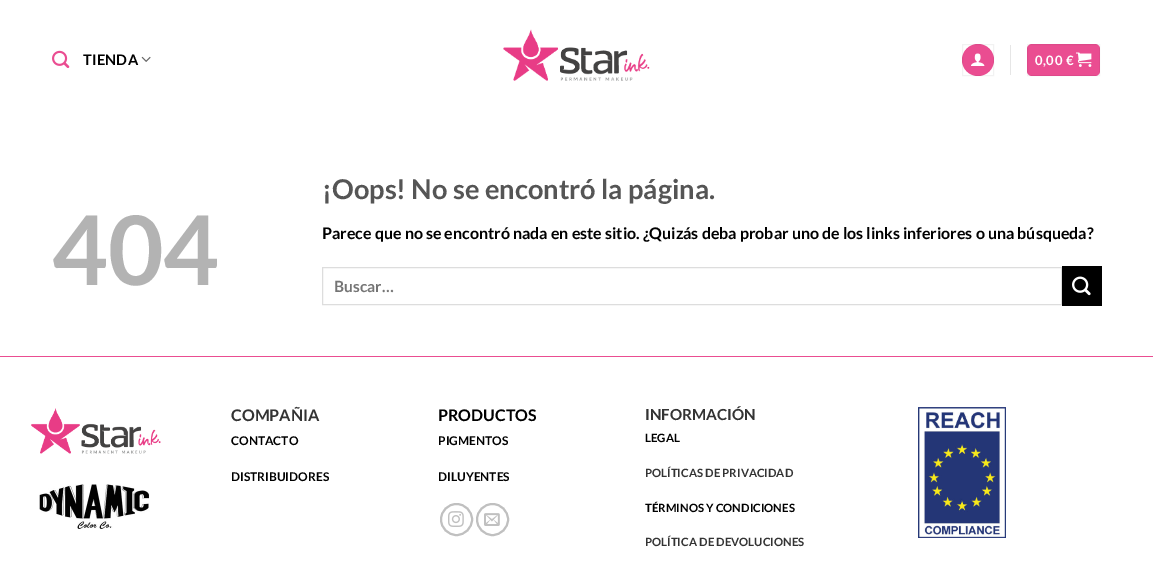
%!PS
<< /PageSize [1153 578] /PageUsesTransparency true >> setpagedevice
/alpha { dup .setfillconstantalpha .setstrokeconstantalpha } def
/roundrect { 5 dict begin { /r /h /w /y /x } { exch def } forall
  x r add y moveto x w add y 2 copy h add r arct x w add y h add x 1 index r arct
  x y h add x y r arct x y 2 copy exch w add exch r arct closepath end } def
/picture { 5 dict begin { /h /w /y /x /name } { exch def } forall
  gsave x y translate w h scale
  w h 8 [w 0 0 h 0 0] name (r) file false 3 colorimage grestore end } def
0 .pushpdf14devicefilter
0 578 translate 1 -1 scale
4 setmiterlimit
1 setgray
0 0 1153 578 rectfill
(img1.rgb) 52 50 18 18 picture
/Lato-Bold [14.5 0 0 -14.5 0 0] selectfont
0 setgray
83 65 moveto 0.25 0 (TIENDA) ashow
(img2.rgb) 141 56 10 6 picture
(img3.rgb) 503 29 147 52 picture
0.918 0.302 0.569 setrgbcolor
newpath 978 60 16 0 360 arc closepath fill
0.05 alpha
0 setgray
962.5 44.5 31 31 rectstroke
1 alpha
(img4.rgb) 971 53 14 13 picture
0.902 setgray
1010 45 1 30 rectfill
0.918 0.302 0.569 setrgbcolor
1027 44 73 32 5 roundrect fill
0.05 alpha
0 setgray
1027.5 44.5 72 31 rectstroke
/Lato-Bold [13 0 0 -13 0 0] selectfont
1 alpha
1 setgray
1035 65 moveto 0.5 0 (0,00 €) ashow
(img5.rgb) 1076 52 16 15 picture
/Lato-Bold [96 0 0 -96 0 0] selectfont
0.702 setgray
52 285 moveto (404) show
/Lato-Bold [27.25 0 0 -27.25 0 0] selectfont
0.333 setgray
322 199 moveto (¡Oops! No se encontró la página.) show
/Lato-Bold [16 0 0 -16 0 0] selectfont
0 setgray
322 239 moveto (Parece que no se encontró nada en este sitio. ¿Quizás deba probar uno de los links inferiores o una búsqueda?) show
0.867 setgray
322.5 267.5 739 37 rectstroke
/Lato-Bold [15.5 0 0 -15.5 0 0] selectfont
0.459 setgray
334 292 moveto (Buscar…) show
0 setgray
1062 266 40 40 rectfill
(img6.rgb) 1072 276 19 20 picture
0.918 0.302 0.569 setrgbcolor
0 356 1153 1 rectfill
(img7.rgb) 31 408 130 46 picture
(img8.rgb) 39 484 111 45 picture
/Lato-Bold [16 0 0 -16 0 0] selectfont
0.2 setgray
231 421 moveto (COMPAÑIA) show
/Lato-Bold [12 0 0 -12 0 0] selectfont
0 setgray
231 445 moveto (CONTACTO) show
231 481 moveto (DISTRIBUIDORES) show
/Lato-Bold [16 0 0 -16 0 0] selectfont
438 421 moveto (PRODUCTOS) show
/Lato-Bold [12 0 0 -12 0 0] selectfont
438 445 moveto (PIGMENTOS) show
438 481 moveto (DILUYENTES) show
0.753 setgray
2 setlinewidth
newpath 456.5 519.5 15.5 0 360 arc closepath stroke
(img9.rgb) 448 511 16 16 picture
newpath 492.5 519.5 15.5 0 360 arc closepath stroke
(img10.rgb) 484 513 16 13 picture
/Lato-Bold [15.25 0 0 -15.25 0 0] selectfont
0.2 setgray
645 420 moveto (INFORMACIÓN) show
/Lato-Bold [11.4 0 0 -11.4 0 0] selectfont
0 setgray
645 442 moveto (LEGAL) show
0.2 setgray
645 477 moveto (POLÍTICAS DE PRIVACIDAD) show
0 setgray
645 512 moveto (TÉRMINOS Y CONDICIONES) show
0.2 setgray
645 546 moveto (POLÍTICA DE DEVOLUCIONES) show
(img11.rgb) 918 407 88 131 picture
.poppdf14devicefilter showpage
